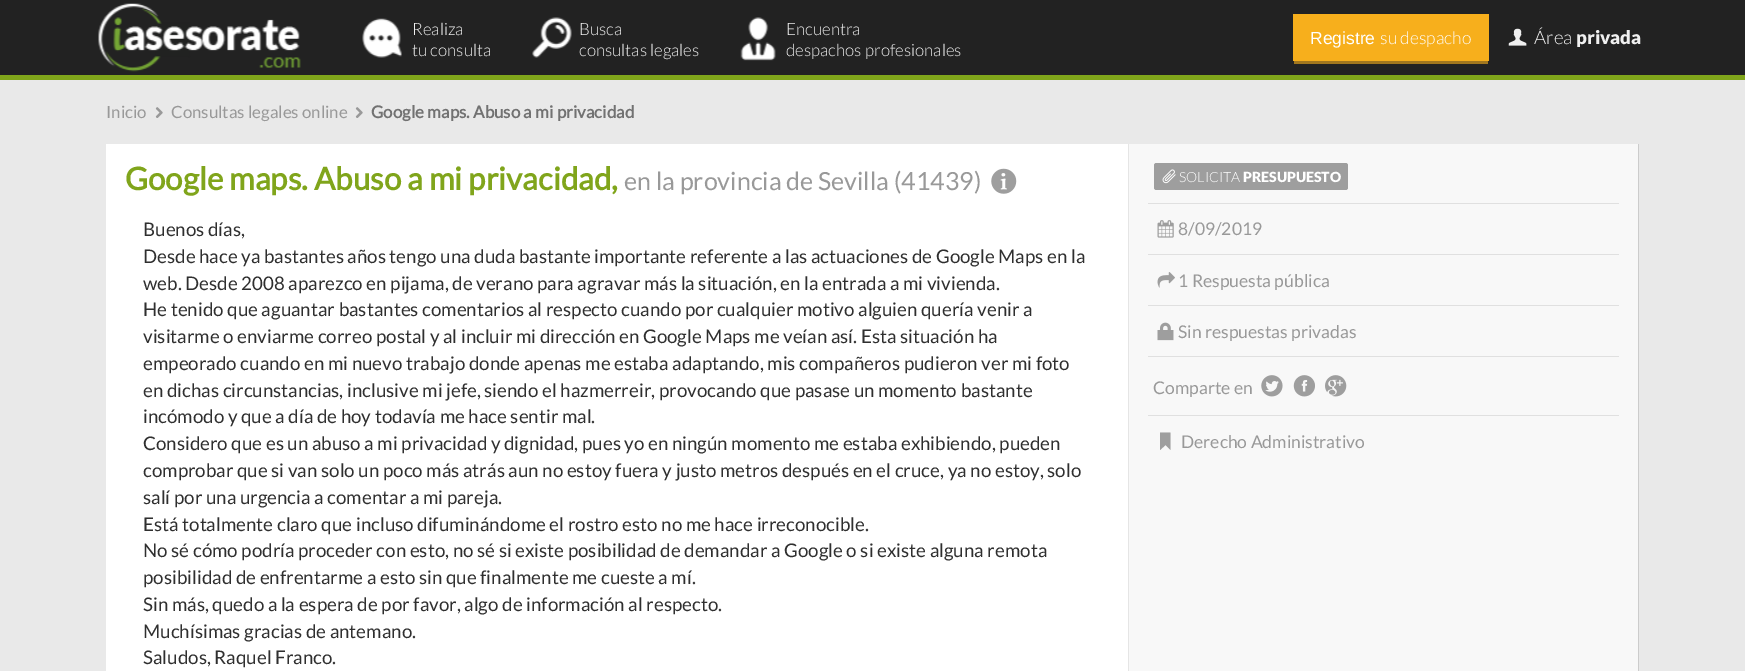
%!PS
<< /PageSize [1745 671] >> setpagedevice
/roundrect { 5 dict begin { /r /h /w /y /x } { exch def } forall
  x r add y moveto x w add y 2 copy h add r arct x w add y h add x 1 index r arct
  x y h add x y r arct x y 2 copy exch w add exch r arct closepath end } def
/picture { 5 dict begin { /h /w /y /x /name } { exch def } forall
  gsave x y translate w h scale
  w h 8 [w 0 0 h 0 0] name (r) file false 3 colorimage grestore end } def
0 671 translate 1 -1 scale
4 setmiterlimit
0.914 setgray
0 0 1745 671 rectfill
0.133 setgray
0 0 1745 75 rectfill
0.502 0.647 0.106 setrgbcolor
0 75 1745 5 rectfill
(img1.rgb) 98 3 203 69 picture
(img2.rgb) 362 18 40 40 picture
/Lato-Light [16.9 0 0 -16.9 0 0] selectfont
0.941 setgray
412 35 moveto (Realiza) show
412 56 moveto (tu consulta) show
(img3.rgb) 532 17 40 41 picture
579 35 moveto (Busca) show
579 56 moveto (consultas legales) show
(img4.rgb) 740 17 36 44 picture
786 35 moveto (Encuentra) show
786 56 moveto (despachos profesionales) show
0.969 0.686 0.11 setrgbcolor
1293 14 196 47 rectfill
/LiberationSans-Regular [17.5 0 0 -17.5 0 0] selectfont
1 setgray
1310 44 moveto (Registre) show
/Lato-Light [17.5 0 0 -17.5 0 0] selectfont
1380 44 moveto (su despacho) show
0.635 0.467 0.118 setrgbcolor
1294 61 194 3 rectfill
(img5.rgb) 1508 28 19 18 picture
/Lato-Light [18.75 0 0 -18.75 0 0] selectfont
0.941 setgray
1534 44 moveto (Área) show
/Lato-Black [18.75 0 0 -18.75 0 0] selectfont
1576 44 moveto (privada) show
/Lato-Regular [16.9 0 0 -16.9 0 0] selectfont
0.6 setgray
106 118 moveto (Inicio) show
(img6.rgb) 155 107 8 11 picture
171 118 moveto (Consultas legales online) show
(img6.rgb) 355 107 8 11 picture
/Lato-Bold [16.9 0 0 -16.9 0 0] selectfont
0.447 setgray
371 118 moveto (Google maps. Abuso a mi privacidad) show
1 setgray
106 144 1022 527 rectfill
0.8 setgray
1638 144 1 527 rectfill
/Lato-Bold [31.25 0 0 -31.25 0 0] selectfont
0.502 0.647 0.106 setrgbcolor
125 190 moveto (Google maps. Abuso a mi privacidad,) show
/Lato-Regular [25 0 0 -25 0 0] selectfont
0.6 setgray
624 190 moveto (en la provincia de Sevilla \(41439\)) show
(img7.rgb) 991 168 26 26 picture
/Lato-Regular [18.75 0 0 -18.75 0 0] selectfont
0.184 setgray
143 236 moveto (Buenos días,) show
143 263 moveto (Desde hace ya bastantes años tengo una duda bastante importante referente a las actuaciones de Google Maps en la) show
143 290 moveto (web. Desde 2008 aparezco en pijama, de verano para agravar más la situación, en la entrada a mi vivienda.) show
143 316 moveto (He tenido que aguantar bastantes comentarios al respecto cuando por cualquier motivo alguien quería venir a) show
143 343 moveto (visitarme o enviarme correo postal y al incluir mi dirección en Google Maps me veían así. Esta situación ha) show
143 370 moveto (empeorado cuando en mi nuevo trabajo donde apenas me estaba adaptando, mis compañeros pudieron ver mi foto) show
143 397 moveto (en dichas circunstancias, inclusive mi jefe, siendo el hazmerreir, provocando que pasase un momento bastante) show
143 423 moveto (incómodo y que a día de hoy todavía me hace sentir mal.) show
143 450 moveto (Considero que es un abuso a mi privacidad y dignidad, pues yo en ningún momento me estaba exhibiendo, pueden) show
143 477 moveto (comprobar que si van solo un poco más atrás aun no estoy fuera y justo metros después en el cruce, ya no estoy, solo) show
143 504 moveto (salí por una urgencia a comentar a mi pareja.) show
143 531 moveto (Está totalmente claro que incluso difuminándome el rostro esto no me hace irreconocible.) show
143 557 moveto (No sé cómo podría proceder con esto, no sé si existe posibilidad de demandar a Google o si existe alguna remota) show
143 584 moveto (posibilidad de enfrentarme a esto sin que finalmente me cueste a mí.) show
143 611 moveto (Sin más, quedo a la espera de por favor, algo de información al respecto.) show
143 638 moveto (Muchísimas gracias de antemano.) show
143 664 moveto (Saludos, Raquel Franco.) show
0.973 setgray
1129 144 509 527 rectfill
0.898 setgray
1128 144 1 527 rectfill
0.878 setgray
1148 203 471 1 rectfill
0.62 setgray
1154 163 194 27 2.5 roundrect fill
(img8.rgb) 1162 169 14 15 picture
/Lato-Light [14 0 0 -14 0 0] selectfont
1 setgray
1179 182 moveto (SOLICITA) show
/Lato-Black [14 0 0 -14 0 0] selectfont
1243 182 moveto (PRESUPUESTO) show
0.878 setgray
1148 254 471 1 rectfill
(img9.rgb) 1157 220 17 18 picture
/Lato-Regular [17.5 0 0 -17.5 0 0] selectfont
0.6 setgray
1178 235 moveto (8/09/2019) show
0.878 setgray
1148 305 471 1 rectfill
(img10.rgb) 1157 272 18 16 picture
0.6 setgray
1178 287 moveto (1 Respuesta pública) show
0.878 setgray
1148 356 471 1 rectfill
(img11.rgb) 1157 322 17 19 picture
0.6 setgray
1178 338 moveto (Sin respuestas privadas) show
0.878 setgray
1148 415 471 1 rectfill
0.6 setgray
1153 394 moveto (Comparte en) show
(img12.rgb) 1261 375 22 22 picture
(img13.rgb) 1293 375 22 22 picture
(img14.rgb) 1325 375 22 22 picture
0.62 setgray
newpath 1160 448.5 moveto 1160 432.5 lineto 1170.5 432.5 lineto 1170.5 450 lineto 1165.5 445 lineto 1160 450 lineto closepath fill
0.6 setgray
1181 448 moveto (Derecho Administrativo) show
showpage
